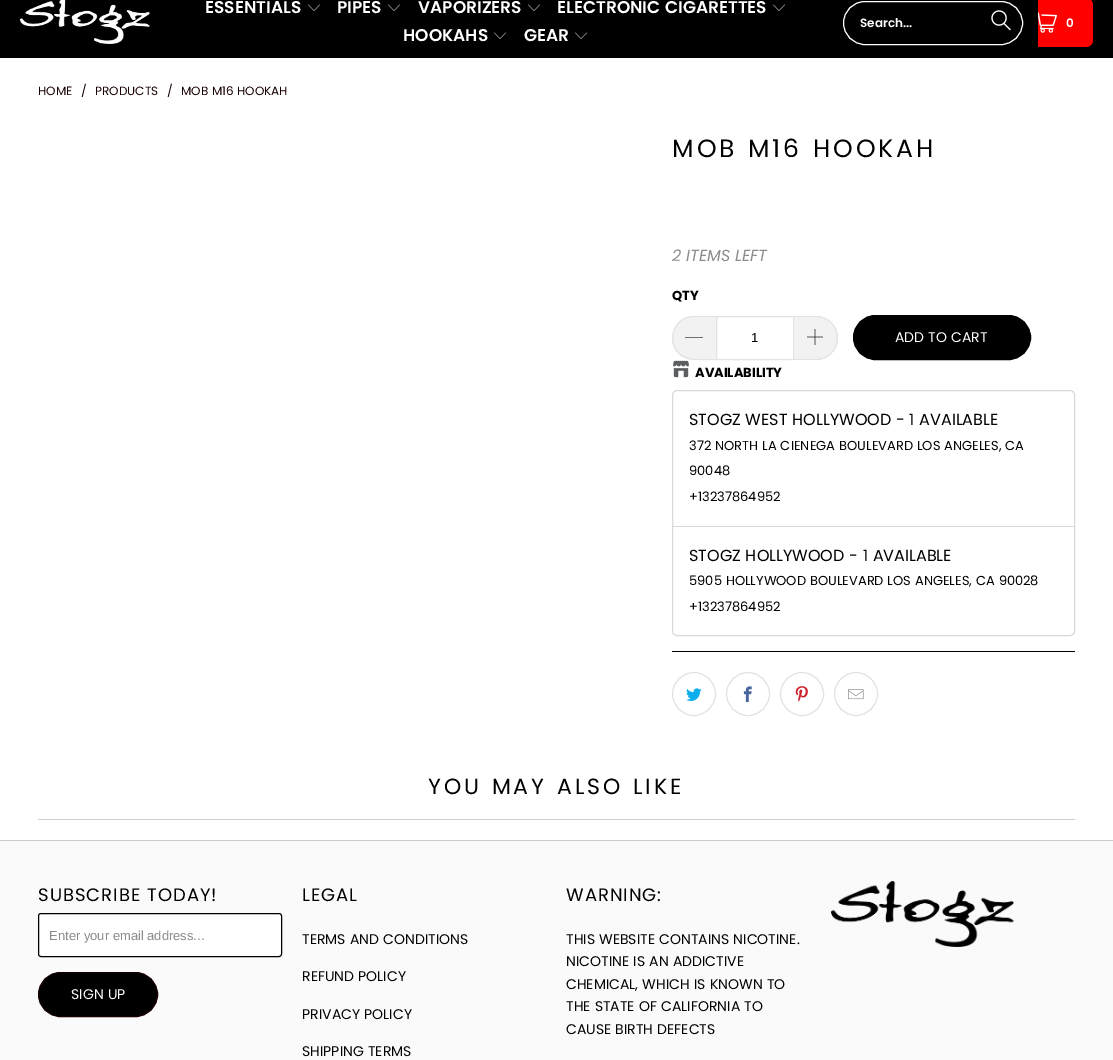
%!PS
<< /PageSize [1113 1060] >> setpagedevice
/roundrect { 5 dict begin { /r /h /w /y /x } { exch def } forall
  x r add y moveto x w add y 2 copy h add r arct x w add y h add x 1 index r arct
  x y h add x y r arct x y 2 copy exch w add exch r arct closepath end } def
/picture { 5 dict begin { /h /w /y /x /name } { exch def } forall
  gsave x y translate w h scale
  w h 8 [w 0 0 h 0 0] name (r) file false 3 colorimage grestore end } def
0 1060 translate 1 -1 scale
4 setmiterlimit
1 setgray
0 0 1113 1060 rectfill
0 setgray
0 0 1113 58 rectfill
(img1.rgb) 20 0 130 44 picture
/Poppins-SemiBold [17 0 0 -17 0 0] selectfont
1 setgray
205 13 moveto (ESSENTIALS) show
(img2.rgb) 308 4 12 7 picture
337 13 moveto (PIPES) show
(img2.rgb) 388 4 12 7 picture
418 13 moveto (VAPORIZERS) show
(img2.rgb) 528 4 12 7 picture
557 13 moveto (ELECTRONIC CIGARETTES) show
(img2.rgb) 773 4 12 7 picture
403 41 moveto (HOOKAHS) show
(img2.rgb) 494 32 12 7 picture
524 41 moveto (GEAR) show
(img2.rgb) 575 32 12 7 picture
843.5 1.5 179 43 21.5 roundrect stroke
/Poppins-SemiBold [12 0 0 -12 0 0] selectfont
860 27 moveto (Search...) show
(img3.rgb) 991 10 20 21 picture
1 0 0 setrgbcolor
newpath 1038 -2 moveto 1086 -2 lineto 1090 -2 1093 1 1093 5 curveto 1093 40 lineto 1093 44 1090 47 1086 47 curveto 1038 47 lineto closepath fill
(img4.rgb) 1038 12 19 21 picture
1 setgray
1066 27 moveto 1 0 (0) ashow
/Poppins-Regular [12 0 0 -12 0 0] selectfont
0.094 0 0 setrgbcolor
38 95 moveto (HOME) show
81 95 moveto (/) show
95 95 moveto (PRODUCTS) show
167 95 moveto (/) show
181 95 moveto (MOB M16 HOOKAH) show
/Poppins-Regular [25 0 0 -25 0 0] selectfont
0 setgray
672 157 moveto 3 0 (MOB M16 HOOKAH) ashow
/Poppins-Italic [16 0 0 -16 0 0] selectfont
0.549 0.545 0.545 setrgbcolor
672 261 moveto (2 ITEMS LEFT) show
/Poppins-Bold [13 0 0 -13 0 0] selectfont
0 setgray
672 300 moveto (QTY) show
0.949 setgray
newpath 694 316 moveto 716 316 lineto 716 360 lineto 694 360 lineto 682 360 672 350 672 338 curveto 672 326 682 316 694 316 curveto closepath fill
(img6.rgb) 673 360 16 18 picture
0.886 setgray
newpath 694 316 moveto 716 316 lineto 716 360 lineto 708 360 693 361 685 358 curveto 664 349 670 316 694 316 curveto closepath 694 317 moveto 716 317 lineto 716 359 lineto 708 359 693 360 686 357 curveto 665 349 671 317 694 317 curveto closepath eofill
0 setgray
newpath 685 337 moveto 703 337 lineto 703 337.5 lineto 685 337.5 lineto closepath fill
0.886 setgray
716.5 316.5 77 43 rectstroke
/LiberationSans-Regular [13 0 0 -13 0 0] selectfont
0 setgray
751 342 moveto (1) show
0.949 setgray
newpath 794 316 moveto 816 316 lineto 828 316 838 326 838 338 curveto 838 350 828 360 816 360 curveto 794 360 lineto closepath fill
0.886 setgray
newpath 794 316 moveto 816 316 lineto 828 316 838 326 838 338 curveto 838 350 828 360 816 360 curveto 794 360 lineto closepath 794 317 moveto 816 317 lineto 828 317 837 326 837 338 curveto 837 350 828 359 816 359 curveto 794 359 lineto closepath eofill
(img5.rgb) 807 329 16 16 picture
0 setgray
853.5 315.5 177 44 22 roundrect gsave fill grestore
stroke
/Poppins-Regular [14 0 0 -14 0 0] selectfont
1 setgray
895 342 moveto (ADD TO CART) show
/Poppins-Bold [13 0 0 -13 0 0] selectfont
0 setgray
695 377 moveto (AVAILABILITY) show
0.851 setgray
672.5 390.5 402 245 4.5 roundrect stroke
/Poppins-Regular [16 0 0 -16 0 0] selectfont
0 setgray
689 425 moveto (STOGZ WEST HOLLYWOOD - 1 AVAILABLE) show
/Poppins-Regular [13 0 0 -13 0 0] selectfont
689 450 moveto (372 NORTH LA CIENEGA BOULEVARD LOS ANGELES, CA) show
689 475 moveto (90048) show
689 501 moveto (+13237864952) show
0.851 setgray
673 526 401 1 rectfill
/Poppins-Regular [16 0 0 -16 0 0] selectfont
0 setgray
689 561 moveto (STOGZ HOLLYWOOD - 1 AVAILABLE) show
/Poppins-Regular [13 0 0 -13 0 0] selectfont
689 585 moveto (5905 HOLLYWOOD BOULEVARD LOS ANGELES, CA 90028) show
689 611 moveto (+13237864952) show
672 651 403 1 rectfill
0.886 setgray
newpath 694 694 21.5 0 360 arc closepath stroke
(img7.rgb) 686 688 16 13 picture
newpath 748 694 21.5 0 360 arc closepath stroke
(img8.rgb) 743 686 9 16 picture
newpath 802 694 21.5 0 360 arc closepath stroke
(img9.rgb) 795 686 13 16 picture
newpath 856 694 21.5 0 360 arc closepath stroke
(img10.rgb) 848 689 16 11 picture
/Poppins-Regular [22 0 0 -22 0 0] selectfont
0 setgray
428 794 moveto 3 0 (YOU MAY ALSO LIKE) ashow
0.8 setgray
38 819 1037 1 rectfill
0.98 setgray
0 841 1113 219 rectfill
0.8 setgray
0 840 1113 1 rectfill
/Poppins-Regular [18 0 0 -18 0 0] selectfont
0 setgray
38 901 moveto 1 0 (SUBSCRIBE TODAY!) ashow
1 setgray
38.5 913.5 243 43 2.5 roundrect gsave fill grestore
0 setgray
stroke
/LiberationSans-Regular [13 0 0 -13 0 0] selectfont
0.549 0.545 0.545 setrgbcolor
49 940 moveto (Enter your email address...) show
0 setgray
38.5 972.5 119 44 22 roundrect gsave fill grestore
0.094 0 0 setrgbcolor
stroke
/Poppins-Regular [14 0 0 -14 0 0] selectfont
1 setgray
71 999 moveto (SIGN UP) show
/Poppins-Regular [18 0 0 -18 0 0] selectfont
0 setgray
302 901 moveto 1 0 (LEGAL) ashow
/Poppins-Regular [14 0 0 -14 0 0] selectfont
302 944 moveto (TERMS AND CONDITIONS) show
302 981 moveto (REFUND POLICY) show
302 1019 moveto (PRIVACY POLICY) show
302 1056 moveto (SHIPPING TERMS) show
/Poppins-Regular [18 0 0 -18 0 0] selectfont
566 901 moveto 1 0 (WARNING:) ashow
/Poppins-Regular [14 0 0 -14 0 0] selectfont
566 944 moveto (THIS WEBSITE CONTAINS NICOTINE.) show
566 966 moveto (NICOTINE IS AN ADDICTIVE) show
566 989 moveto (CHEMICAL, WHICH IS KNOWN TO) show
566 1011 moveto (THE STATE OF CALIFORNIA TO) show
566 1034 moveto (CAUSE BIRTH DEFECTS) show
(img11.rgb) 831 881 183 66 picture
showpage
